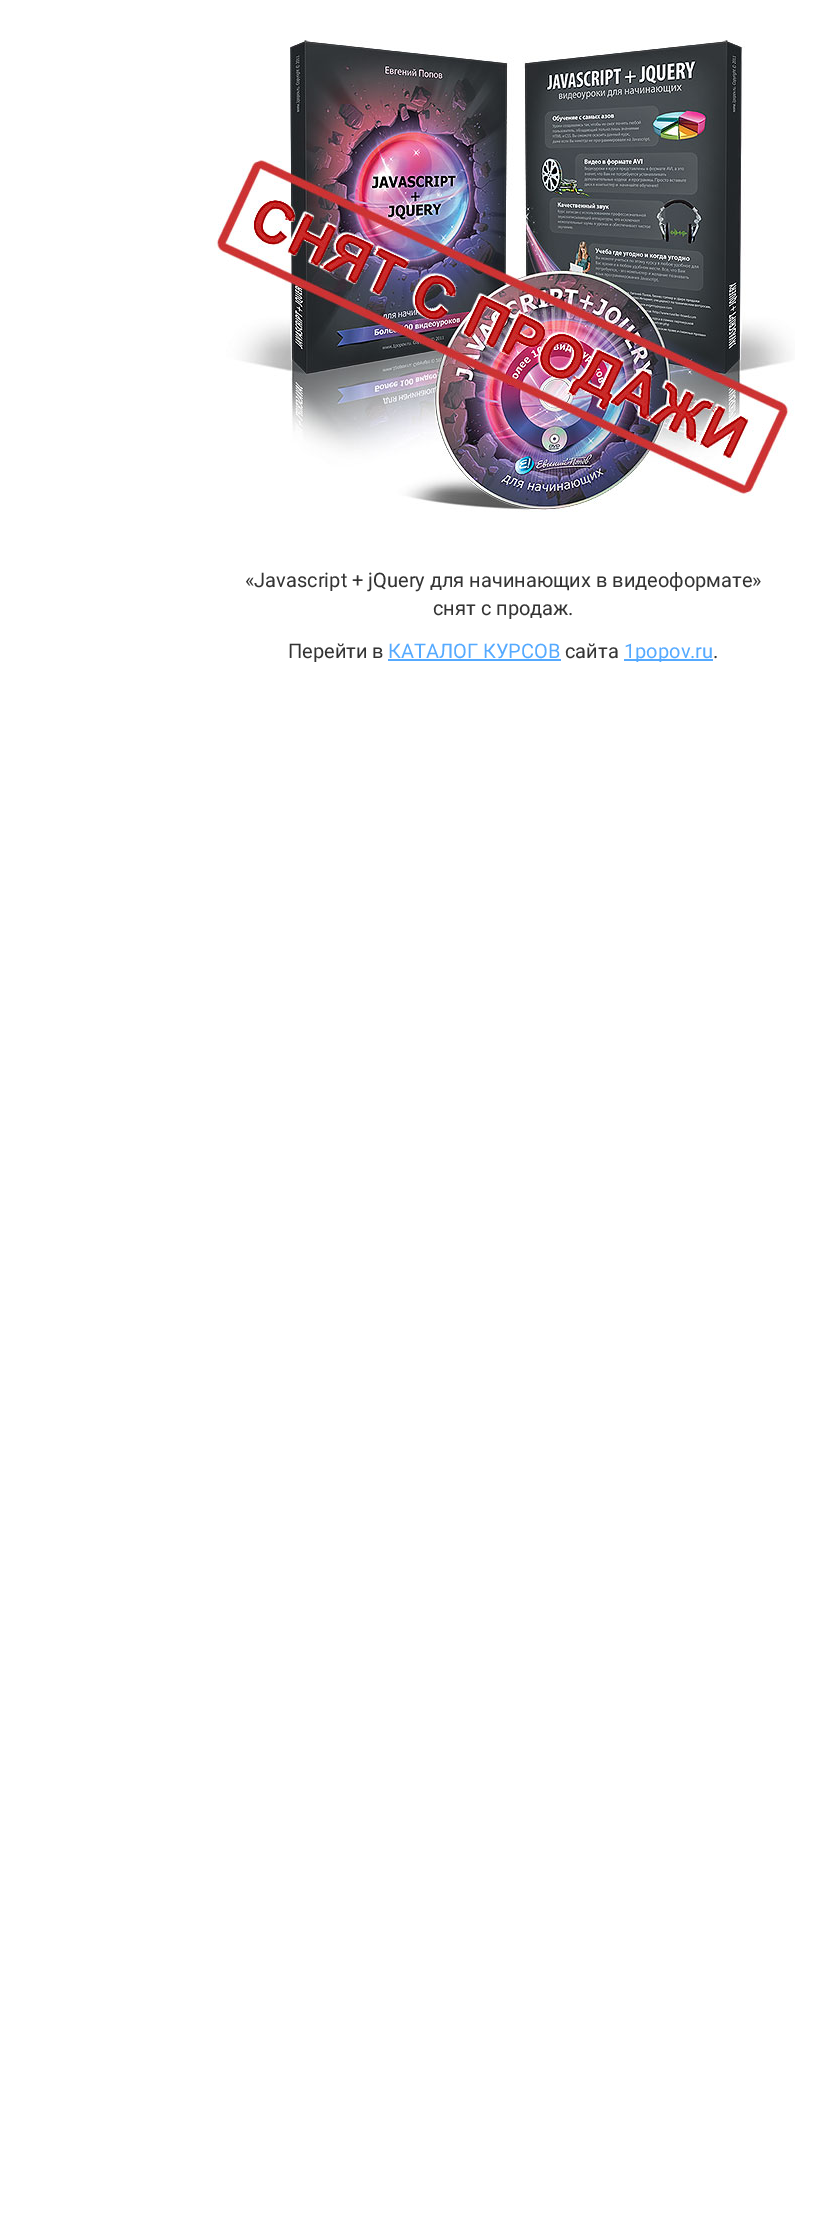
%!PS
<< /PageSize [822 2229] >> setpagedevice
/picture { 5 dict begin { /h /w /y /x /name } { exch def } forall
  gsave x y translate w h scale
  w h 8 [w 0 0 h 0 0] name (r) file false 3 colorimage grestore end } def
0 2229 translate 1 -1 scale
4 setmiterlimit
1 setgray
0 0 822 2229 rectfill
(img1.rgb) 210 40 585 472 picture
/Roboto-Regular [20 0 0 -20 0 0] selectfont
0.2 setgray
245 587 moveto («Javascript + jQuery для начинающих в видеоформате») show
433 615 moveto (снят с продаж.) show
288 658 moveto (Перейти в) show
0.333 0.667 1 setrgbcolor
388 658 moveto (КАТАЛОГ КУРСОВ) show
388 659 173 2 rectfill
0.2 setgray
565 658 moveto (сайта) show
0.333 0.667 1 setrgbcolor
624 659 89 2 rectfill
624 658 moveto (1popov.ru) show
0.2 setgray
713 658 moveto (.) show
showpage
